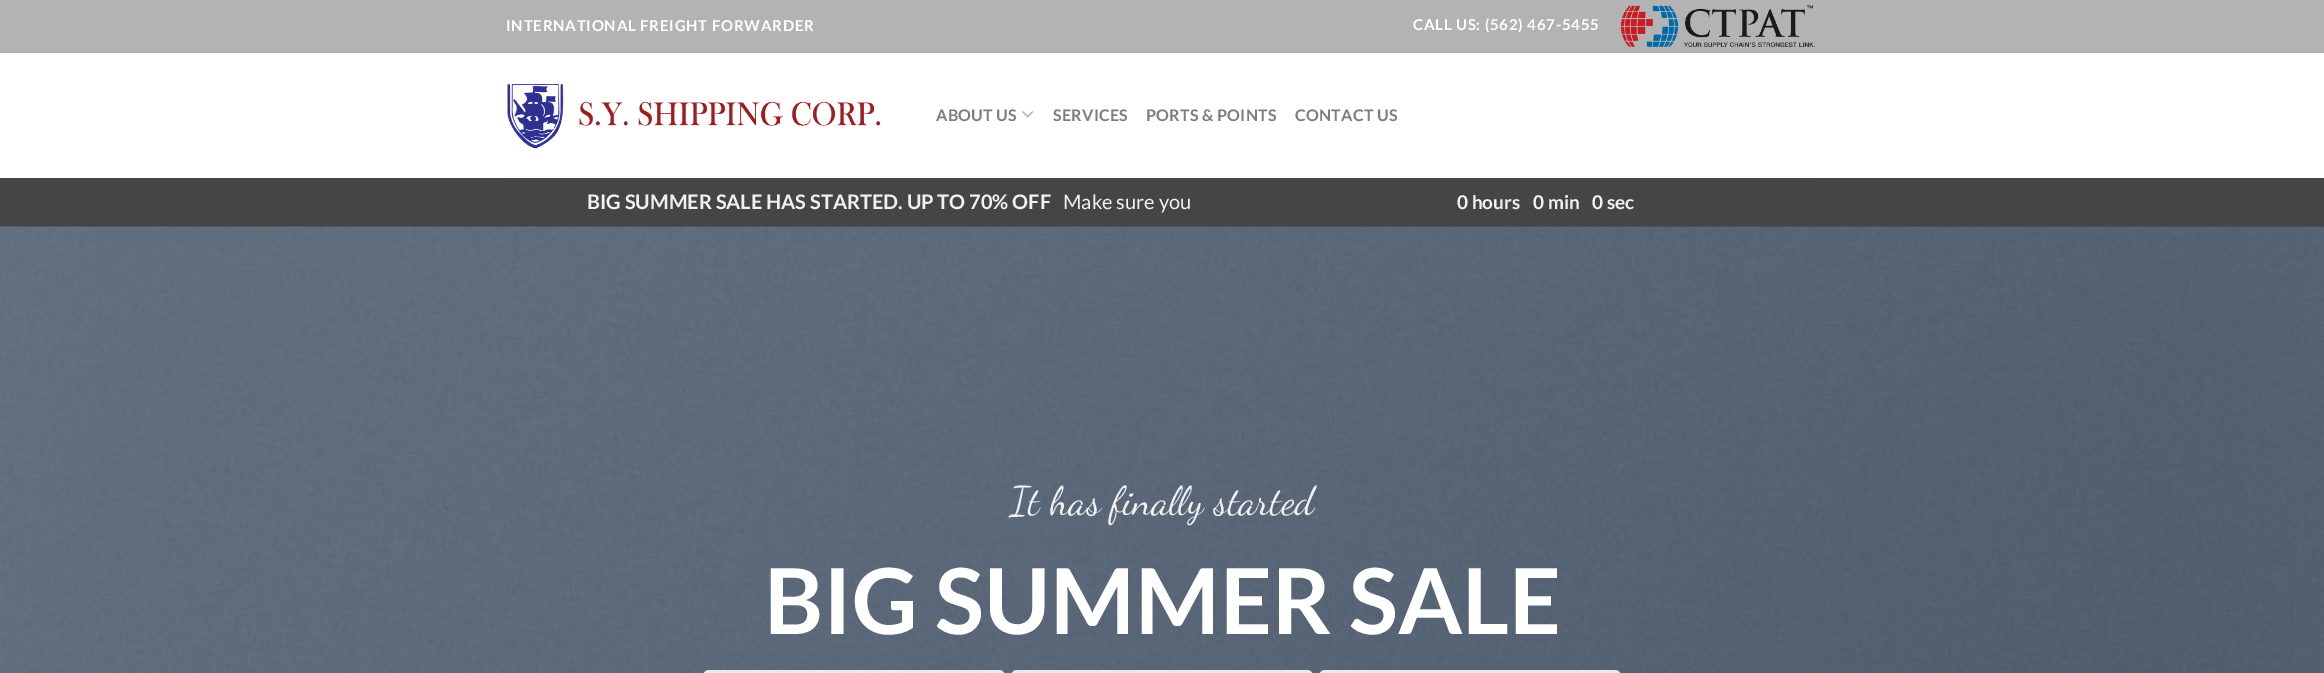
%!PS
<< /PageSize [2324 673] /PageUsesTransparency true >> setpagedevice
/alpha { dup .setfillconstantalpha .setstrokeconstantalpha } def
/roundrect { 5 dict begin { /r /h /w /y /x } { exch def } forall
  x r add y moveto x w add y 2 copy h add r arct x w add y h add x 1 index r arct
  x y h add x y r arct x y 2 copy exch w add exch r arct closepath end } def
/picture { 5 dict begin { /h /w /y /x /name } { exch def } forall
  gsave x y translate w h scale
  w h 8 [w 0 0 h 0 0] name (r) file false 3 colorimage grestore end } def
0 .pushpdf14devicefilter
0 673 translate 1 -1 scale
4 setmiterlimit
1 setgray
0 0 2324 673 rectfill
0.702 setgray
0 0 2324 53 rectfill
/Lato-Bold [15 0 0 -15 0 0] selectfont
1 setgray
506 31 moveto 0.75 0 (INTERNATIONAL FREIGHT FORWARDER) ashow
1413 30 moveto 0.75 0 (CALL US: \(562\) 467-5455) ashow
(img1.rgb) 1620 5 195 42 picture
(img2.rgb) 507 84 373 65 picture
/Lato-Bold [16 0 0 -16 0 0] selectfont
0.49 setgray
936 121 moveto 0.25 0 (ABOUT US) ashow
(img3.rgb) 1022 111 12 7 picture
1053 121 moveto 0.25 0 (SERVICES) ashow
1146 121 moveto 0.25 0 (PORTS & POINTS) ashow
1295 121 moveto 0.25 0 (CONTACT US) ashow
0.271 setgray
0 178 2324 48 rectfill
0.29 setgray
506 178 1313 1 rectfill
/Lato-Bold [20 0 0 -20 0 0] selectfont
0.945 setgray
587 209 moveto (BIG SUMMER SALE HAS STARTED. UP TO 70% OFF) show
/Lato-Regular [20 0 0 -20 0 0] selectfont
1063 209 moveto (Make sure you) show
/Lato-Bold [19 0 0 -19 0 0] selectfont
1457 209 moveto (0 hours) show
1533 209 moveto (0 min) show
1592 209 moveto (0 sec) show
0.173 0.243 0.337 setrgbcolor
0 226 2324 1 rectfill
(img4.rgb) 0 226 2324 447 picture
/DancingScript-Regular [40 0 0 -40 0 0] selectfont
0.945 setgray
1010 514 moveto (It has finally started) show
/Lato-Bold [91 0 0 -91 0 0] selectfont
1 setgray
764 634 moveto (BIG SUMMER SALE) show
0.86 alpha
703 670 302 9 6 roundrect fill
1011 670 302 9 6 roundrect fill
1319 670 302 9 6 roundrect fill
.poppdf14devicefilter showpage
